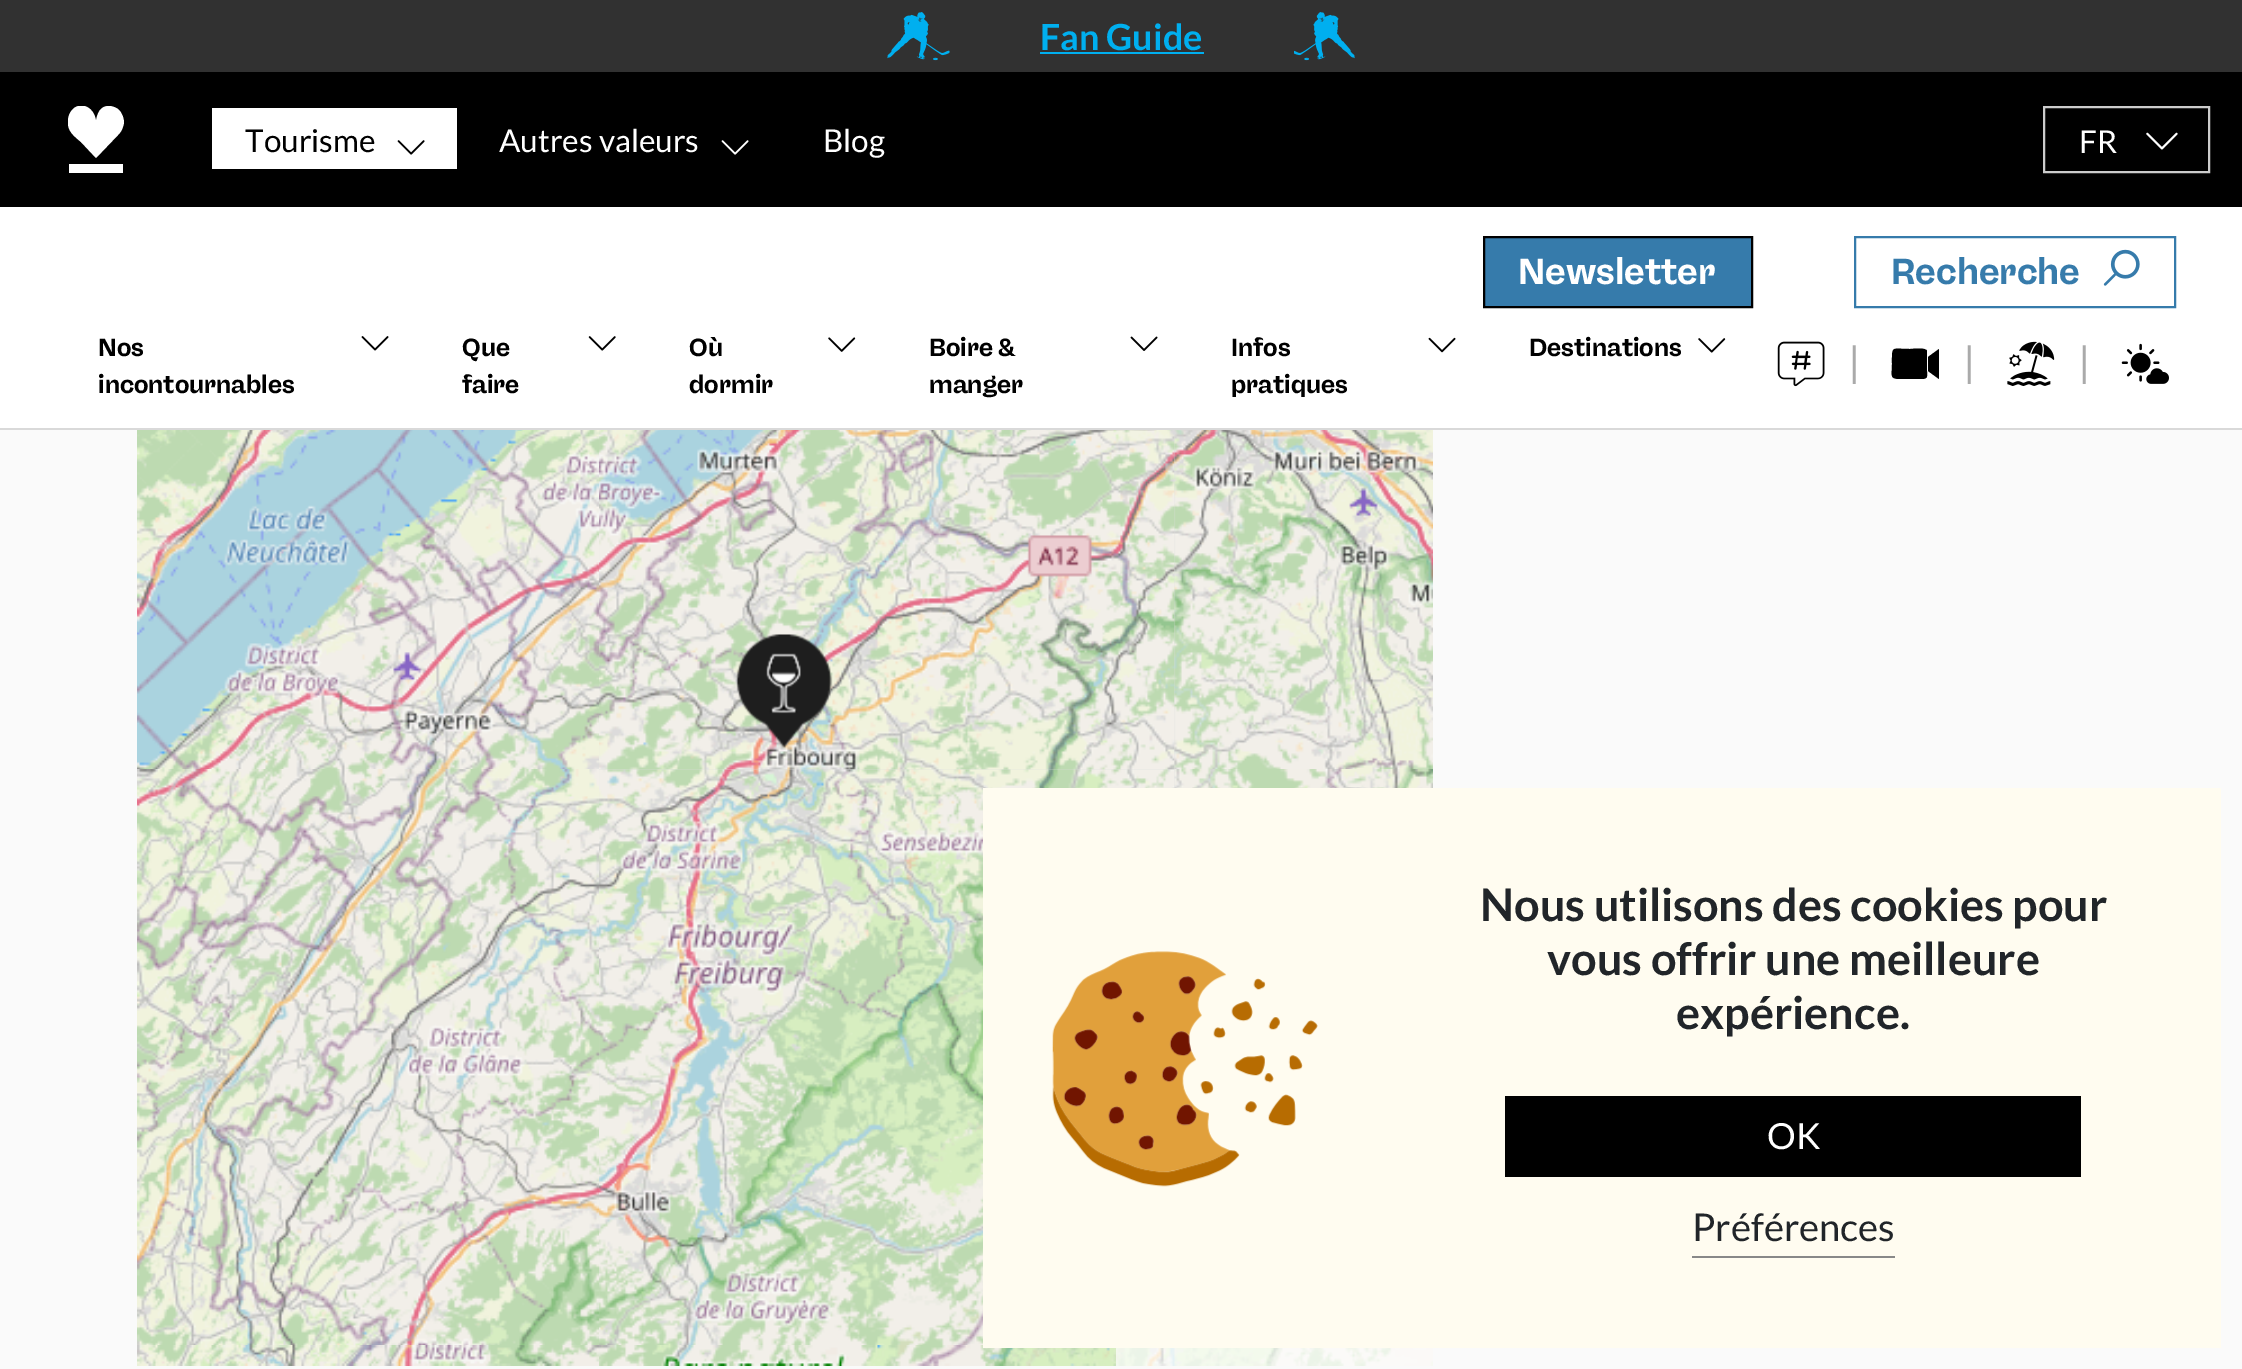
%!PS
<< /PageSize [2242 1369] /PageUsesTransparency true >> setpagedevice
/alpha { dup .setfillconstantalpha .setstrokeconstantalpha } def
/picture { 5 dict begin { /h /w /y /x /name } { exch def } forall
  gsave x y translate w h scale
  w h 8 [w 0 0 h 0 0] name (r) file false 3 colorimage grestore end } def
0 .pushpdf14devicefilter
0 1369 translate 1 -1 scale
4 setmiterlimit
0.98 setgray
0 0 2242 1369 rectfill
0.192 setgray
0 0 2242 72 rectfill
(img1.rgb) 887 12 63 49 picture
/Lato-Bold [36 0 0 -36 0 0] selectfont
0 0.686 0.937 setrgbcolor
1040 50 moveto (Fan Guide) show
1040 52 164 2 rectfill
(img2.rgb) 1294 12 61 49 picture
0 setgray
0 72 2242 135 rectfill
gsave
68 106 56 67 rectclip
1 setgray
newpath 96 121 moveto 94 105 77 100 70 113 curveto 69 115 68 118 68 121 curveto 67 131 74 136 81 142 curveto 96 158 lineto 118 135 lineto 123 130 123 126 124 123 curveto 124 118 122 113 119 110 curveto 117 108 113 106 109 106 curveto 104 106 98 108 96 121 curveto fill
grestore
1 setgray
69 164 54 9 rectfill
212 108 245 61 rectfill
/Lato-Regular [31.5 0 0 -31.5 0 0] selectfont
0 setgray
245 152 moveto (Tourisme) show
(img3.rgb) 397 140 28 15 picture
1 setgray
499 152 moveto (Autres valeurs) show
(img4.rgb) 721 140 28 15 picture
823 152 moveto (Blog) show
0.8 setgray
2 setlinewidth
2044 107 165 65 rectstroke
1 setgray
2079 153 moveto (FR) show
(img5.rgb) 2146 132 32 18 picture
0 207 2242 221 rectfill
0.851 setgray
0 428 2242 2 rectfill
0.212 0.482 0.671 setrgbcolor
newpath 1484 237 moveto 1752 237 lineto 1752 307 lineto 1484 307 lineto closepath gsave fill grestore
0 setgray
stroke
/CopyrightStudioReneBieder-Bold [36 0 0 -36 0 0] selectfont
1 setgray
1518 284 moveto (Newsletter) show
0.212 0.482 0.671 setrgbcolor
1855 237 320 70 rectstroke
1891 284 moveto (Recherche) show
(img6.rgb) 2103 249 37 37 picture
/CopyrightStudioReneBieder-Bold [24.75 0 0 -24.75 0 0] selectfont
0 setgray
98 356 moveto (Nos) show
(img7.rgb) 361 336 28 15 picture
98 393 moveto (incontournables) show
462 356 moveto (Que) show
(img8.rgb) 588 336 28 15 picture
462 393 moveto (faire) show
689 356 moveto (Où) show
(img9.rgb) 828 337 28 15 picture
689 393 moveto (dormir) show
929 356 moveto (Boire &) show
(img10.rgb) 1130 336 28 15 picture
929 393 moveto (manger) show
1231 356 moveto (Infos) show
(img11.rgb) 1428 337 28 16 picture
1231 393 moveto (pratiques) show
1529 356 moveto (Destinations) show
(img12.rgb) 1698 338 28 15 picture
(img13.rgb) 1777 341 48 46 picture
/CopyrightStudioReneBieder-Regular [45 0 0 -45 0 0] selectfont
0.667 setgray
1849 379 moveto (|) show
0 setgray
newpath 1923 379 moveto 1928 378 1927 377 1927 371 curveto 1927 351 lineto 1926 347 1912 349 1910 349 curveto 1891 349 1892 345 1892 364 curveto 1892 376 1889 379 1901 379 curveto closepath 1928 357 moveto 1928 371 lineto 1939 379 lineto 1939 349 lineto closepath fill
0.667 setgray
1964 379 moveto (|) show
(img14.rgb) 2007 341 48 45 picture
2079 379 moveto (|) show
(img15.rgb) 2121 343 48 41 picture
(img16.rgb) 137 430 462 339 picture
(img17.rgb) 599 430 576 340 picture
(img18.rgb) 1174 430 259 339 picture
(img19.rgb) 137 769 462 576 picture
(img20.rgb) 599 769 576 577 picture
(img21.rgb) 1174 769 259 19 picture
(img22.rgb) 137 1345 462 21 picture
(img23.rgb) 599 1345 576 21 picture
(img24.rgb) 1174 1348 259 18 picture
(img25.rgb) 736 634 97 114 picture
0.7 alpha
1 setgray
1116 1348 317 18 rectfill
1 alpha
1 0.988 0.941 setrgbcolor
983 788 1238 560 rectfill
(img26.rgb) 1052 951 266 236 picture
/Lato-Bold [45 0 0 -45 0 0] selectfont
0.129 0.145 0.161 setrgbcolor
1480 921 moveto (Nous utilisons des cookies pour) show
1547 975 moveto (vous offrir une meilleure) show
1676 1029 moveto (expérience.) show
0 setgray
1505 1096 576 81 rectfill
/Lato-Regular [36 0 0 -36 0 0] selectfont
1 setgray
1767 1149 moveto (OK) show
0.533 setgray
1692 1256 203 2 rectfill
/Lato-Regular [38.25 0 0 -38.25 0 0] selectfont
0.129 0.145 0.161 setrgbcolor
1692 1241 moveto (Préférences) show
.poppdf14devicefilter showpage
